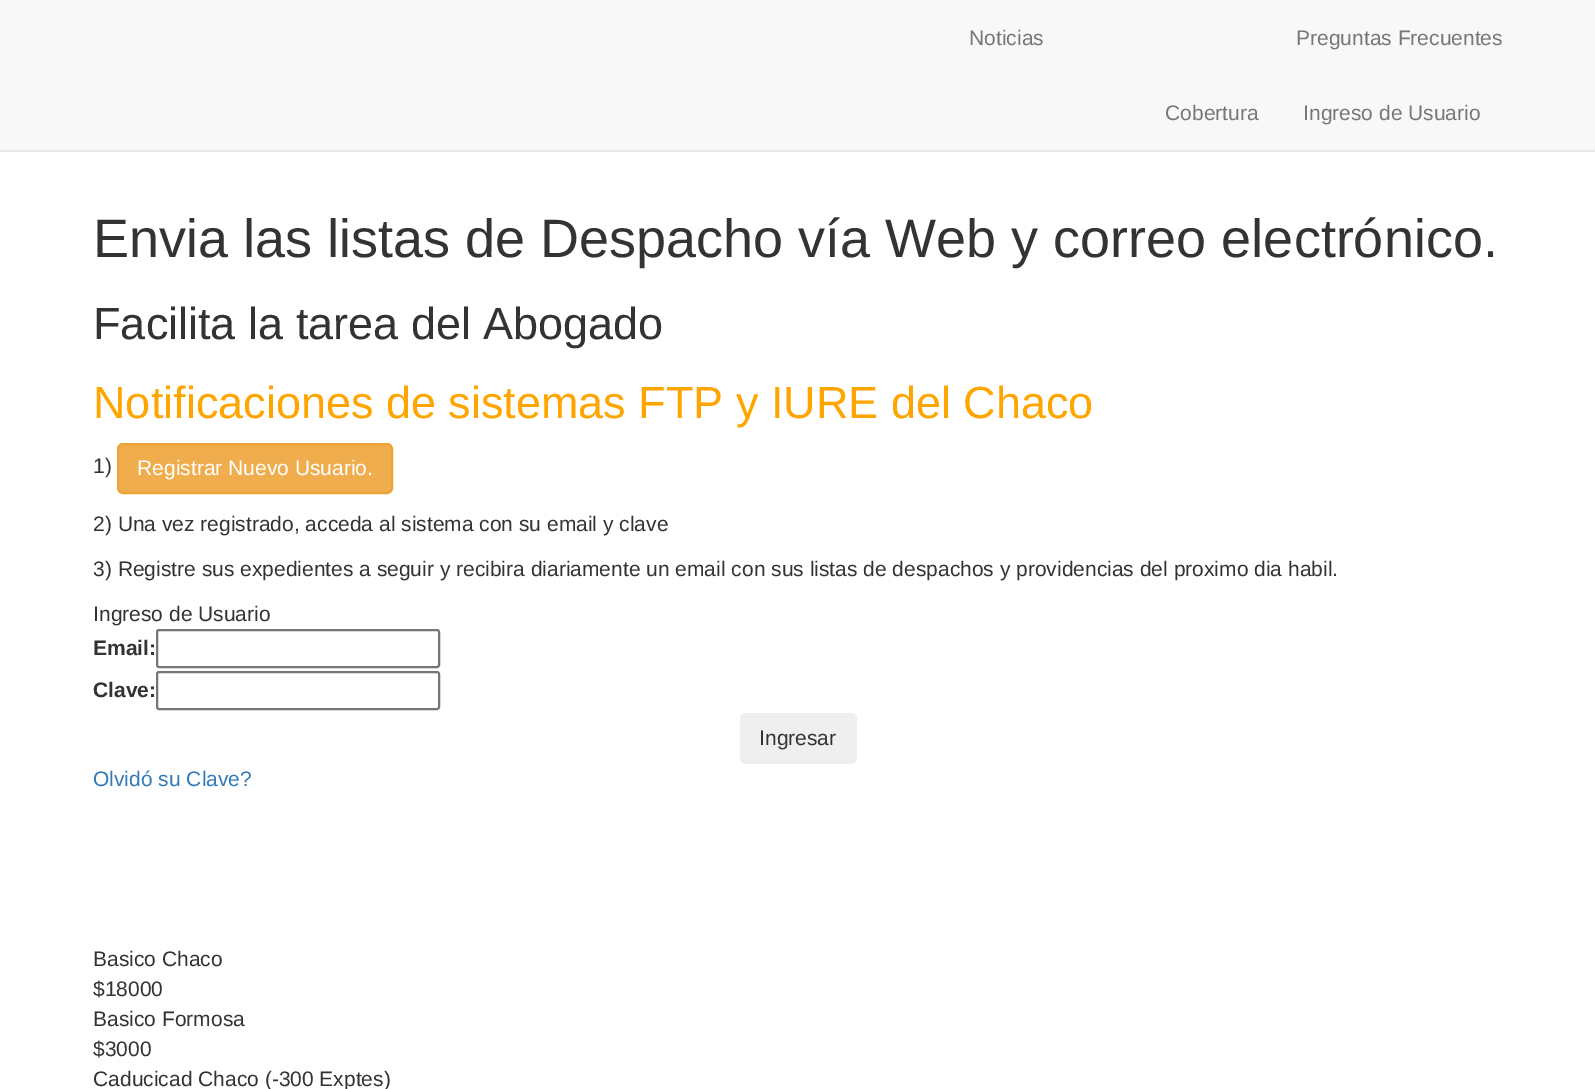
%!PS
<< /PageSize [1595 1089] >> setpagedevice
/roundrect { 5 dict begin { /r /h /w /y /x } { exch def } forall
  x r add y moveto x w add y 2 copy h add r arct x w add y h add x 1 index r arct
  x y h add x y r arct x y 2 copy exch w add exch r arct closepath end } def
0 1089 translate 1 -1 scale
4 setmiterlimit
1 setgray
0 0 1595 1089 rectfill
0.973 setgray
0 0 1595 150 rectfill
0.906 setgray
0 150 1595 2 rectfill
/LiberationSans-Regular [21 0 0 -21 0 0] selectfont
0.467 setgray
969 45 moveto (Noticias) show
1296 45 moveto (Preguntas Frecuentes) show
1165 120 moveto (Cobertura) show
1303 120 moveto (Ingreso de Usuario) show
/LiberationSans-Regular [54 0 0 -54 0 0] selectfont
0.2 setgray
93 257 moveto (Envia las listas de Despacho vía Web y correo electrónico.) show
/LiberationSans-Regular [45 0 0 -45 0 0] selectfont
93 339 moveto (Facilita la tarea del Abogado) show
1 0.647 0 setrgbcolor
93 418 moveto (Notificaciones de sistemas FTP y IURE del Chaco) show
/LiberationSans-Regular [21 0 0 -21 0 0] selectfont
0.2 setgray
93 473 moveto (1\)) show
0.941 0.678 0.306 setrgbcolor
118 444 274 49 5 roundrect gsave fill grestore
0.933 0.635 0.212 setrgbcolor
2 setlinewidth
stroke
1 setgray
137 475 moveto (Registrar Nuevo Usuario.) show
0.2 setgray
93 531 moveto (2\) Una vez registrado, acceda al sistema con su email y clave) show
93 576 moveto (3\) Registre sus expedientes a seguir y recibira diariamente un email con sus listas de despachos y providencias del proximo dia habil.) show
93 621 moveto (Ingreso de Usuario) show
/LiberationSans-Bold [21 0 0 -21 0 0] selectfont
93 655 moveto (Email:) show
0.463 setgray
157 630 282 37 2 roundrect stroke
0.2 setgray
93 697 moveto (Clave:) show
0.463 setgray
157 672 282 37 2 roundrect stroke
0.937 setgray
740 713 117 51 6 roundrect fill
/LiberationSans-Regular [21 0 0 -21 0 0] selectfont
0.2 setgray
759 745 moveto (Ingresar) show
0.2 0.478 0.718 setrgbcolor
93 786 moveto (Olvidó su Clave?) show
0.2 setgray
93 966 moveto (Basico Chaco) show
93 996 moveto ($18000) show
93 1026 moveto (Basico Formosa) show
93 1056 moveto ($3000) show
93 1086 moveto (Caducicad Chaco \(-300 Exptes\)) show
showpage
